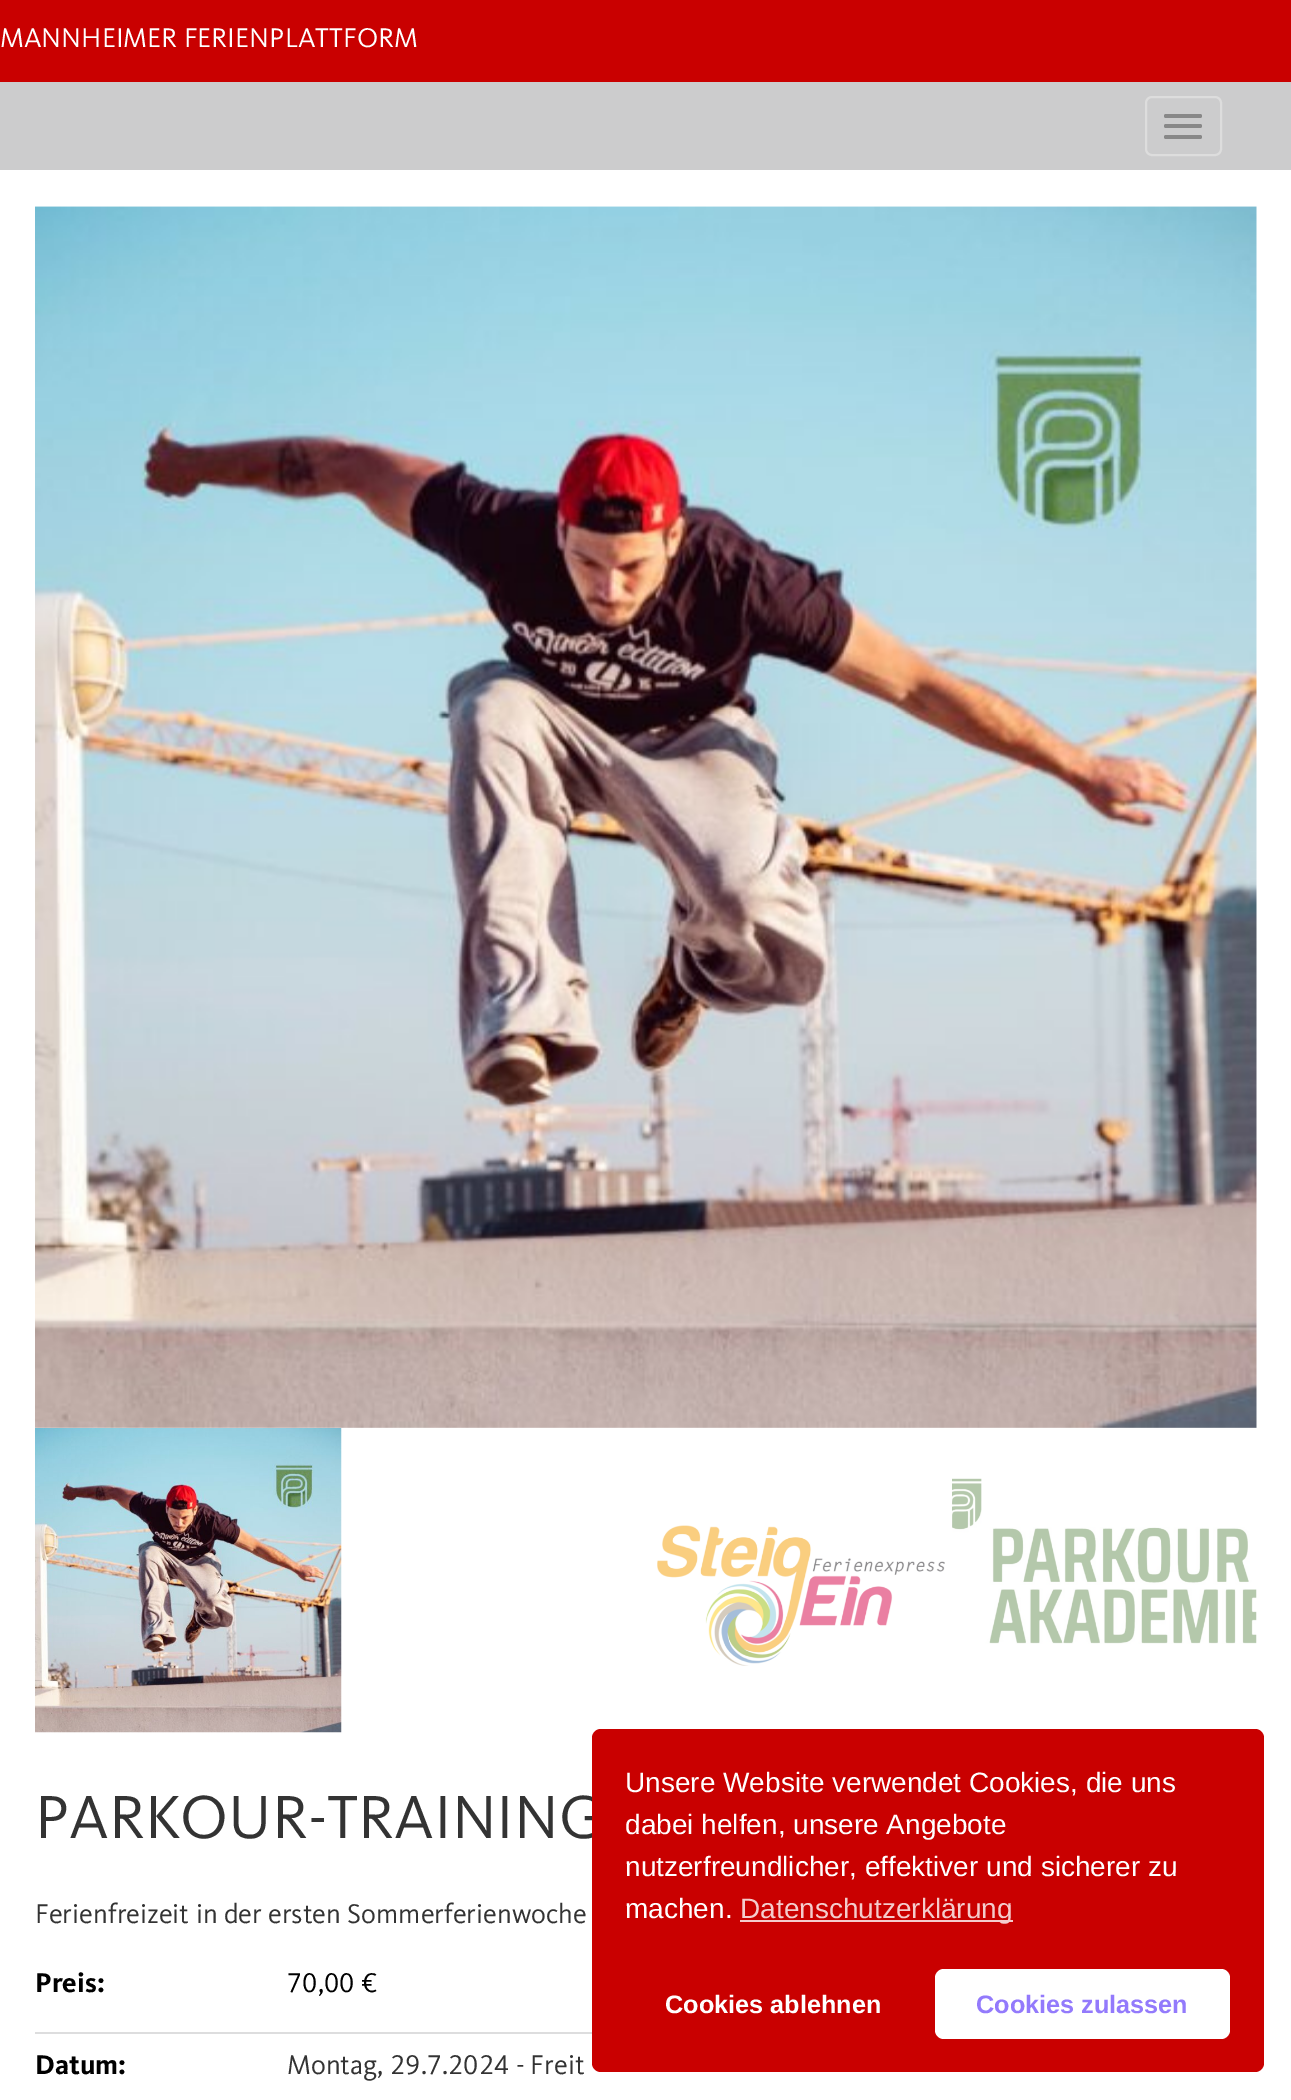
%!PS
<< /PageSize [1291 2100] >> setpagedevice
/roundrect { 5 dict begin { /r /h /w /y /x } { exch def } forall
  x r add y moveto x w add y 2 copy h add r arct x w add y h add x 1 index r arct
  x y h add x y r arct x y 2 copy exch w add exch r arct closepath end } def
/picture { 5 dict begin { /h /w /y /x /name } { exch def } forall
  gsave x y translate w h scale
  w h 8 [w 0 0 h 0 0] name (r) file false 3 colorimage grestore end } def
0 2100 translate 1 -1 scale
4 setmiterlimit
1 setgray
0 0 1291 2100 rectfill
0.788 0 0 setrgbcolor
0 0 1291 82 rectfill
/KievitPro-Regular [28 0 0 -28 0 0] selectfont
1 setgray
0 47 moveto (MANNHEIMER FERIENPLATTFORM) show
0.8 0.8 0.804 setrgbcolor
0 82 1291 88 rectfill
0.867 setgray
2 setlinewidth
1146 97 75 58 6 roundrect stroke
0.533 setgray
1164 114 38 4 2 roundrect fill
1164 124 38 4 2 roundrect fill
1164 135 38 4 2 roundrect fill
(img1.rgb) 35 206 1222 1222 picture
(img2.rgb) 35 1428 307 305 picture
(img3.rgb) 657 1525 288 141 picture
(img4.rgb) 952 1478 305 166 picture
/KievitPro-Regular [63 0 0 -63 0 0] selectfont
0.2 setgray
35 1838 moveto (PARKOUR-TRAINING) show
/KievitPro-Regular [28 0 0 -28 0 0] selectfont
35 1923 moveto (Ferienfreizeit in der ersten Sommerferienwoche) show
/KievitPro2-Regular [28 0 0 -28 0 0] selectfont
0 setgray
35 1992 moveto (Preis:) show
/KievitPro-Regular [28 0 0 -28 0 0] selectfont
287 1992 moveto (70,00 €) show
0.867 0.867 0.871 setrgbcolor
35 2032 557 2 rectfill
/KievitPro2-Regular [28 0 0 -28 0 0] selectfont
0 setgray
35 2074 moveto (Datum:) show
/KievitPro-Regular [28 0 0 -28 0 0] selectfont
0.2 setgray
287 2074 moveto (Montag, 29.7.2024 - Freit) show
0.788 0 0 setrgbcolor
592 1729 672 343 9 roundrect fill
/LiberationSans-Regular [28 0 0 -28 0 0] selectfont
1 setgray
625 1792 moveto (Unsere Website verwendet Cookies, die uns) show
625 1834 moveto (dabei helfen, unsere Angebote) show
625 1876 moveto (nutzerfreundlicher, effektiver und sicherer zu) show
625 1918 moveto (machen.) show
0.957 0.8 0.8 setrgbcolor
740 1920 273 2 rectfill
740 1918 moveto (Datenschutzerklärung) show
/LiberationSans-Bold [25.25 0 0 -25.25 0 0] selectfont
1 setgray
665 2013 moveto (Cookies ablehnen) show
935 1969 295 70 9 roundrect fill
0.576 0.478 0.988 setrgbcolor
976 2013 moveto (Cookies zulassen) show
showpage
